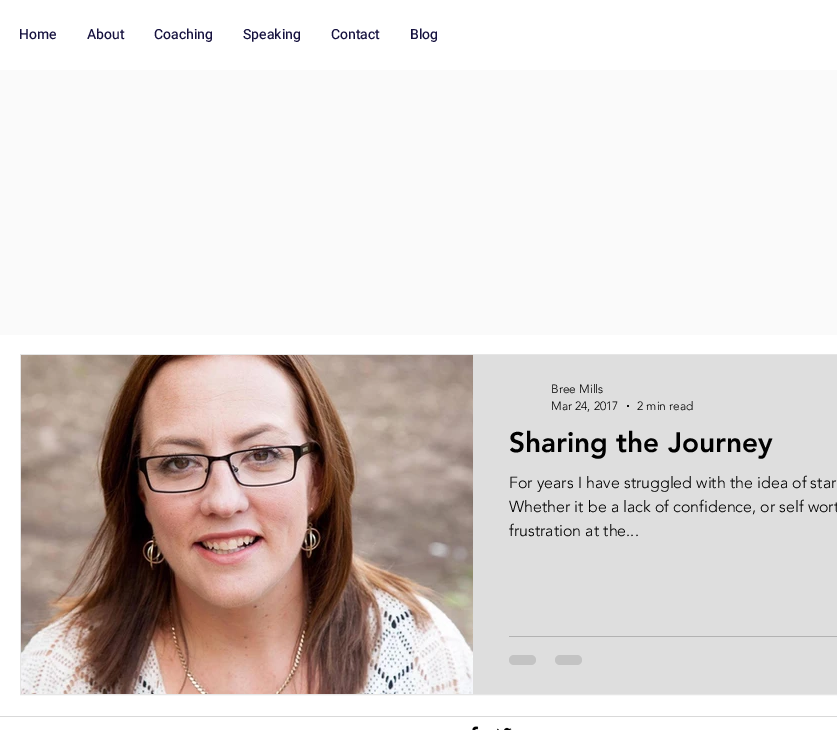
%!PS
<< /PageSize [837 730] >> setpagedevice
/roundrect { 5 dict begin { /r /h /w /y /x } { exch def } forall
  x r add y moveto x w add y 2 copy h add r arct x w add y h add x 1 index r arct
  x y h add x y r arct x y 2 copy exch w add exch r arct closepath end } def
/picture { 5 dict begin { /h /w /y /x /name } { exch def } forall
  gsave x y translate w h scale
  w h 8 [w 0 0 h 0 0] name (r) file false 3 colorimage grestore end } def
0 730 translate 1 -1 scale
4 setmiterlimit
1 setgray
0 0 837 730 rectfill
/Heebo-Medium [14 0 0 -14 0 0] selectfont
0.086 0.071 0.247 setrgbcolor
19 39 moveto (Home) show
87 39 moveto (About) show
154 39 moveto (Coaching) show
243 39 moveto (Speaking) show
331 39 moveto (Contact) show
410 39 moveto (Blog) show
0.98 setgray
0 70 837 265 rectfill
0.902 setgray
20.5 354.5 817 340 rectstroke
(img1.rgb) 21 355 452 339 picture
0.871 setgray
473 355 364 339 rectfill
/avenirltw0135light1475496-Light [12 0 0 -12 0 0] selectfont
0 setgray
551 393 moveto (Bree Mills) show
551 410 moveto (Mar 24, 2017) show
newpath 628 406 1 0 360 arc closepath fill
637 410 moveto (2 min read) show
/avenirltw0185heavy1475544-Black [28 0 0 -28 0 0] selectfont
509 452 moveto (Sharing the Journey) show
/avenirltw0135light1475496-Light [16 0 0 -16 0 0] selectfont
509 488 moveto (For years I have struggled with the idea of star) show
509 512 moveto (Whether it be a lack of confidence, or self wort) show
509 536 moveto (frustration at the...) show
0.698 setgray
509 636 328 1 rectfill
0.765 setgray
509 655 27 10 5 roundrect fill
555 655 27 10 5 roundrect fill
0.851 setgray
0 716 837 1 rectfill
(img2.rgb) 472 726 7 4 picture
(img3.rgb) 497 727 15 3 picture
showpage
